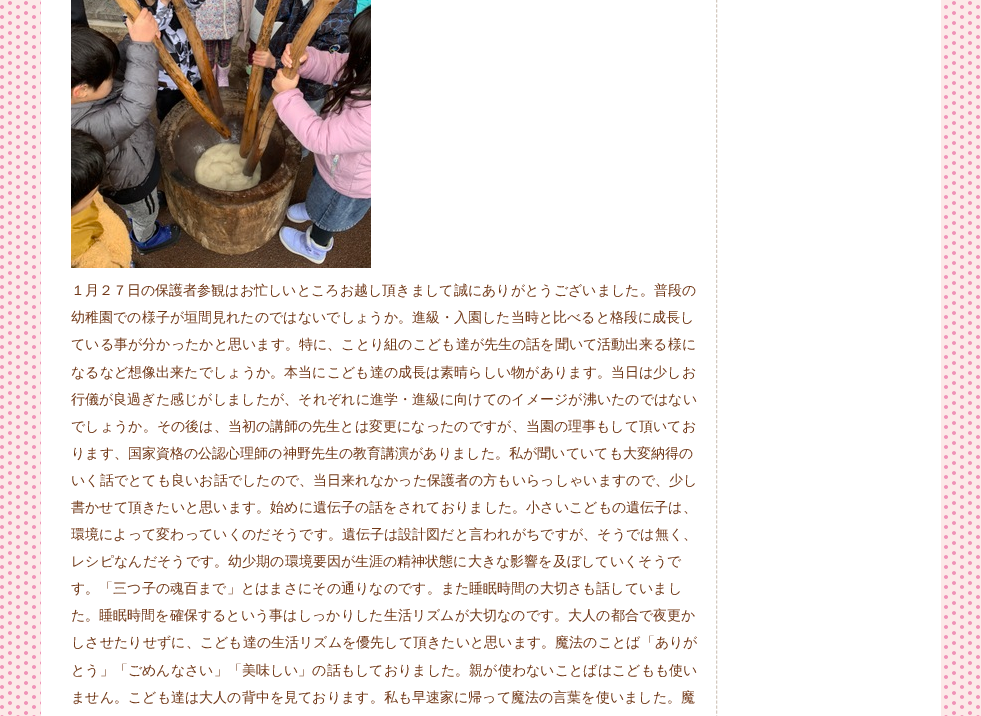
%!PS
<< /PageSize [981 716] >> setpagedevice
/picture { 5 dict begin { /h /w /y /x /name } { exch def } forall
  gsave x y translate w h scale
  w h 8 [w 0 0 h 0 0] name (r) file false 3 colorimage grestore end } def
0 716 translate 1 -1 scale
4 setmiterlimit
1 setgray
0 0 981 716 rectfill
(img1.rgb) 0 0 981 716 picture
41 0 900 716 rectfill
0.831 0.788 0.749 setrgbcolor
[3 2.01] 0 setdash
newpath 716.5 -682 moveto 716.5 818 lineto stroke
(img2.rgb) 71 0 300 268 picture
/WenQuanYiZenHei-Medium [14 0 0 -14 0 0] selectfont
0.447 0.224 0.094 setrgbcolor
71 295 moveto (１月２７日の保護者参観はお忙しいところお越し頂きまして誠にありがとうございました。普段の) show
71 322 moveto (幼稚園での様子が垣間見れたのではないでしょうか。進級・入園した当時と比べると格段に成長し) show
71 349 moveto (ている事が分かったかと思います。特に、ことり組のこども達が先生の話を聞いて活動出来る様に) show
71 377 moveto (なるなど想像出来たでしょうか。本当にこども達の成長は素晴らしい物があります。当日は少しお) show
71 404 moveto (行儀が良過ぎた感じがしましたが、それぞれに進学・進級に向けてのイメージが沸いたのではない) show
71 431 moveto (でしょうか。その後は、当初の講師の先生とは変更になったのですが、当園の理事もして頂いてお) show
71 458 moveto (ります、国家資格の公認心理師の神野先生の教育講演がありました。私が聞いていても大変納得の) show
71 485 moveto (いく話でとても良いお話でしたので、当日来れなかった保護者の方もいらっしゃいますので、少し) show
71 512 moveto (書かせて頂きたいと思います。始めに遺伝子の話をされておりました。小さいこどもの遺伝子は、) show
71 539 moveto (環境によって変わっていくのだそうです。遺伝子は設計図だと言われがちですが、そうでは無く、) show
71 566 moveto (レシピなんだそうです。幼少期の環境要因が生涯の精神状態に大きな影響を及ぼしていくそうで) show
71 593 moveto (す。「三つ子の魂百まで」とはまさにその通りなのです。また睡眠時間の大切さも話していまし) show
71 620 moveto (た。睡眠時間を確保するという事はしっかりした生活リズムが大切なのです。大人の都合で夜更か) show
71 647 moveto (しさせたりせずに、こども達の生活リズムを優先して頂きたいと思います。魔法のことば「ありが) show
71 675 moveto (とう」「ごめんなさい」「美味しい」の話もしておりました。親が使わないことばはこどもも使い) show
71 702 moveto (ません。こども達は大人の背中を見ております。私も早速家に帰って魔法の言葉を使いました。魔) show
showpage
